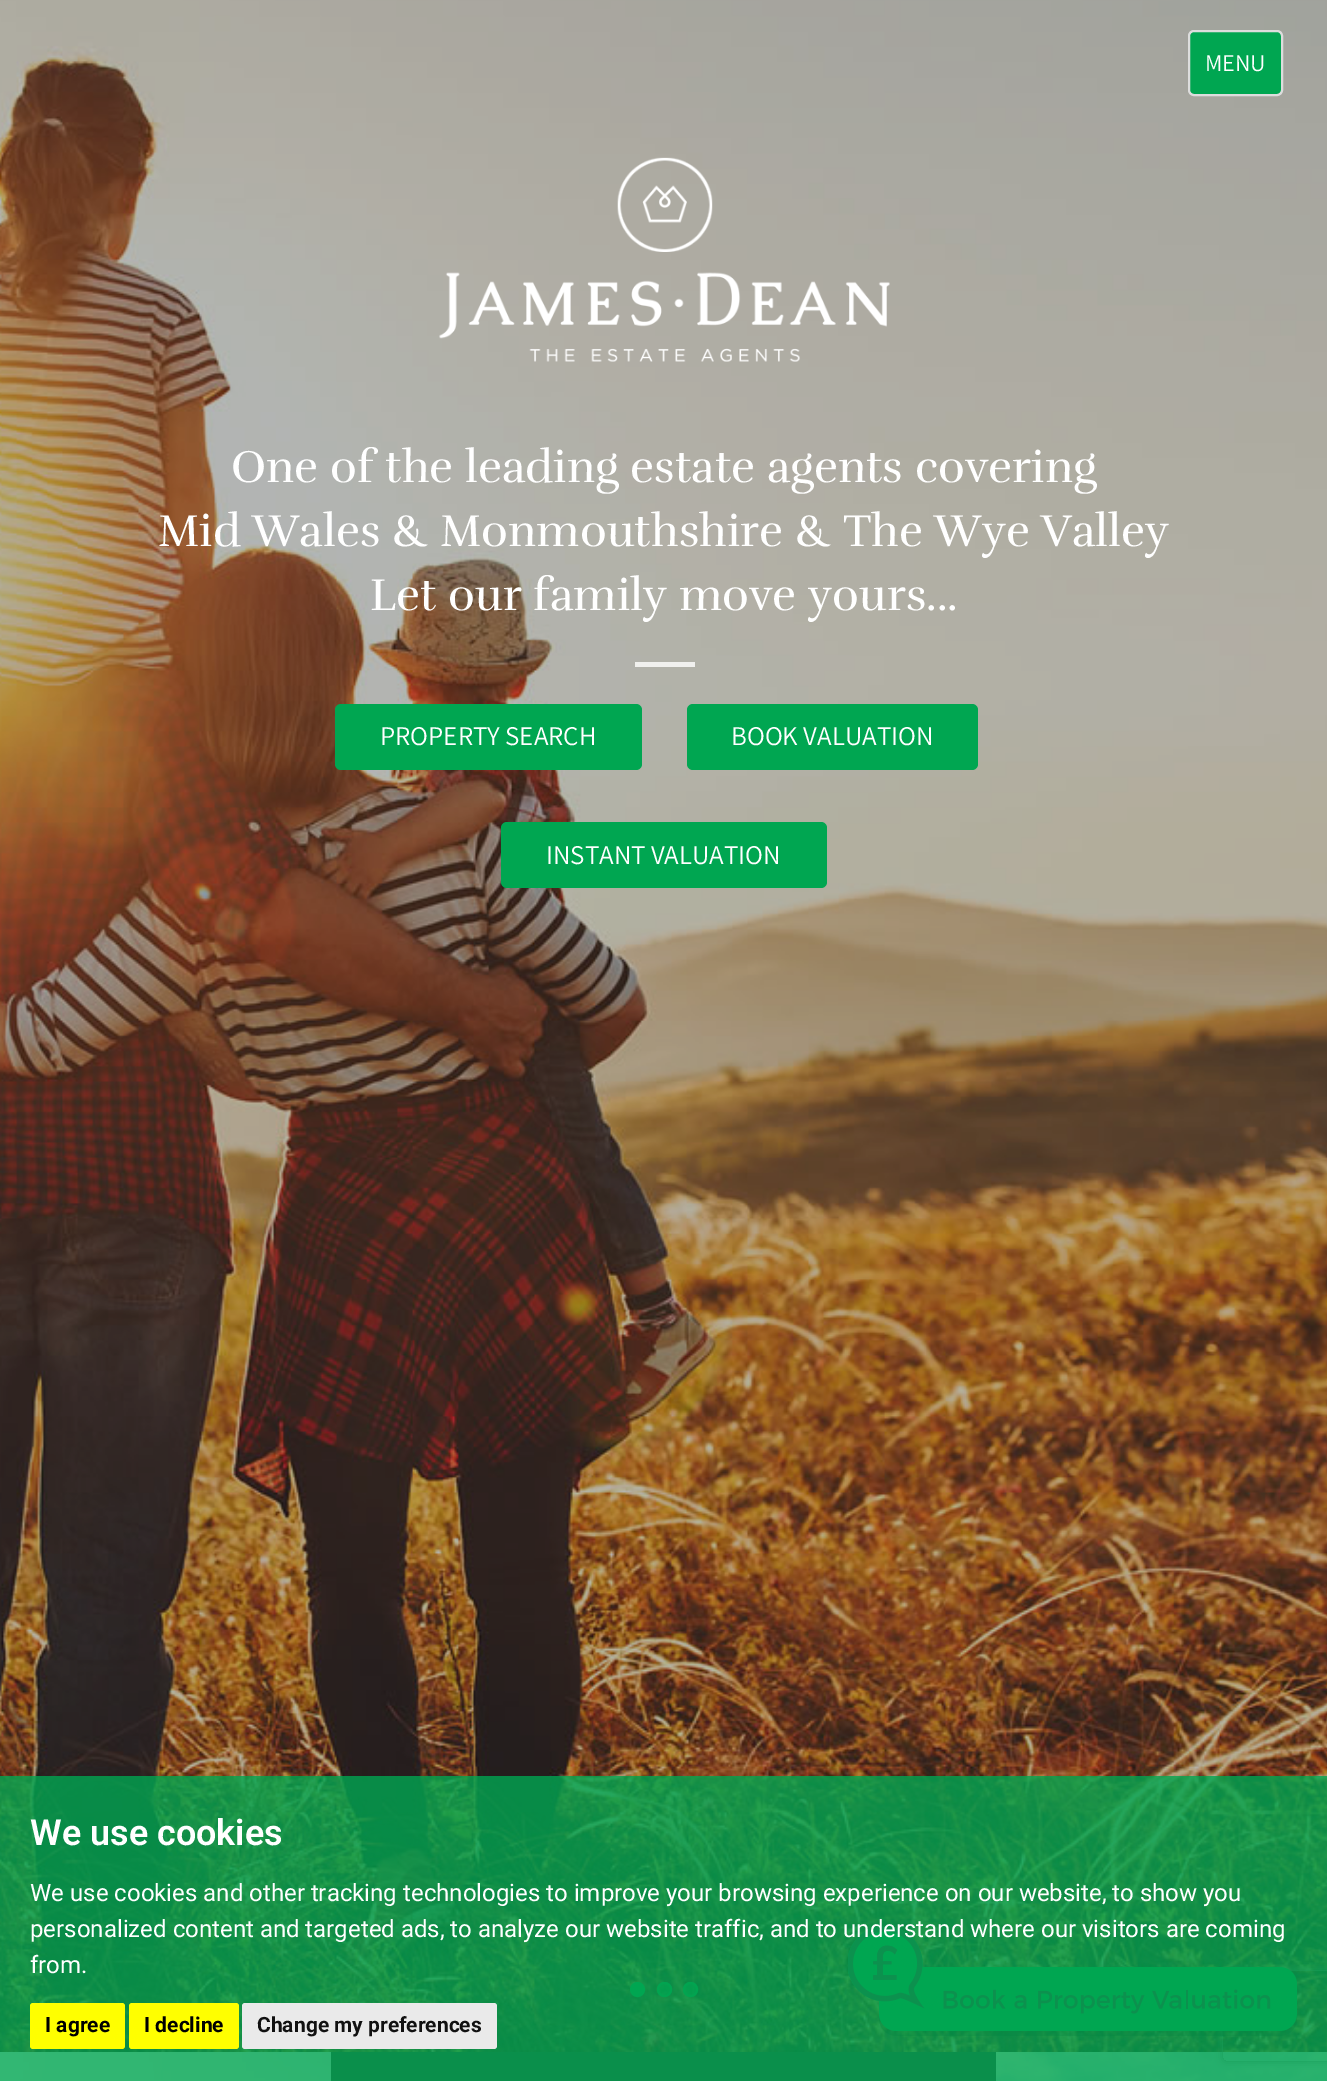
%!PS
<< /PageSize [1327 2081] /PageUsesTransparency true >> setpagedevice
/alpha { dup .setfillconstantalpha .setstrokeconstantalpha } def
/roundrect { 5 dict begin { /r /h /w /y /x } { exch def } forall
  x r add y moveto x w add y 2 copy h add r arct x w add y h add x 1 index r arct
  x y h add x y r arct x y 2 copy exch w add exch r arct closepath end } def
/shadow { 12 dict begin { /a /b /q /h /w /y /x } { exch def } forall gsave /was 0 def
  9 -2 -9 { dup b mul 4 div /e exch def 1 sub .425 mul 2.718 exch exp 1 add a .99 .min exch div /now exch def
    1 1 now sub 1 was sub div sub alpha /was now def
    w h .min e 2 mul add 0 gt { x e sub y e sub w e 2 mul add h e 2 mul add
      q e add b .6 mul add w h .min 2 div e add .min 0 .max roundrect fill } if } for grestore end } def
/picture { 5 dict begin { /h /w /y /x /name } { exch def } forall
  gsave x y translate w h scale
  w h 8 [w 0 0 h 0 0] name (r) file false 3 colorimage grestore end } def
0 .pushpdf14devicefilter
0 2081 translate 1 -1 scale
4 setmiterlimit
1 setgray
0 0 1327 2081 rectfill
(img1.rgb) 0 0 1327 2052 picture
0 0.651 0.318 setrgbcolor
1189 31 93 64 5 roundrect gsave fill grestore
0.867 setgray
2 setlinewidth
stroke
/Assistant-Regular [24 0 0 -24 0 0] selectfont
1 setgray
1205 71 moveto (MENU) show
(img2.rgb) 439 157 451 205 picture
/Rufina-Regular [45.6 0 0 -45.6 0 0] selectfont
231 482 moveto (One of the leading estate agents covering) show
158 546 moveto (Mid Wales & Monmouthshire & The Wye Valley) show
370 610 moveto (Let our family move yours...) show
0.941 0.941 0.933 setrgbcolor
635 662 60 5 rectfill
0 0.651 0.318 setrgbcolor
335 704 307 66 6 roundrect fill
/Assistant-Regular [27 0 0 -27 0 0] selectfont
1 setgray
380 745 moveto (PROPERTY SEARCH) show
0 0.651 0.318 setrgbcolor
687 704 291 66 6 roundrect fill
1 setgray
731 745 moveto (BOOK VALUATION) show
0 0.651 0.318 setrgbcolor
501 822 326 66 6 roundrect fill
1 setgray
546 864 moveto (INSTANT VALUATION) show
0 0.651 0.318 setrgbcolor
newpath 637.5 1989.5 6.5 0 360 arc closepath gsave fill grestore
stroke
0.7 alpha
newpath 664.5 1989.5 7.5 0 360 arc closepath fill
newpath 664.5 1989.5 6.5 0 360 arc closepath stroke
newpath 690.5 1989.5 7.5 0 360 arc closepath fill
newpath 690.5 1989.5 6.5 0 360 arc closepath stroke
1 alpha
(img5.rgb) 996 2052 331 29 picture
gsave
newpath 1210 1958 moveto 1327 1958 lineto 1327 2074 lineto 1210 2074 lineto closepath 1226 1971 moveto 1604 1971 lineto 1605.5 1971 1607 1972.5 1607 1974 curveto 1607 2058 lineto 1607 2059.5 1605.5 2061 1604 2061 curveto 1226 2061 lineto 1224.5 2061 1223 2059.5 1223 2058 curveto 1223 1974 lineto 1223 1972.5 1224.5 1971 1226 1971 curveto closepath eoclip newpath
0.502 setgray
1223 1971 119 90 3 4 1 shadow
grestore
(img3.rgb) 848 1926 449 110 picture
(img4.rgb) 0 2052 331 29 picture
0.2 setgray
331 2052 665 29 rectfill
0.8 alpha
0 0.651 0.318 setrgbcolor
0 1776 1327 305 rectfill
/Roboto-SemiBold [36 0 0 -36 0 0] selectfont
1 alpha
1 setgray
30 1845 moveto (We use cookies) show
/Roboto-Regular [24 0 0 -24 0 0] selectfont
30 1901 moveto (We use cookies and other tracking technologies to improve your browsing experience on our website, to show you) show
30 1937 moveto (personalized content and targeted ads, to analyze our website traffic, and to understand where our visitors are coming) show
30 1973 moveto (from.) show
1 1 0 setrgbcolor
30 2003 95 46 3 roundrect fill
/Roboto-Bold [21 0 0 -21 0 0] selectfont
0 setgray
45 2032 moveto (I agree) show
1 1 0 setrgbcolor
129 2003 110 46 3 roundrect fill
0 setgray
144 2032 moveto (I decline) show
0.918 setgray
242 2003 255 46 3 roundrect fill
0.067 setgray
257 2032 moveto (Change my preferences) show
.poppdf14devicefilter showpage
